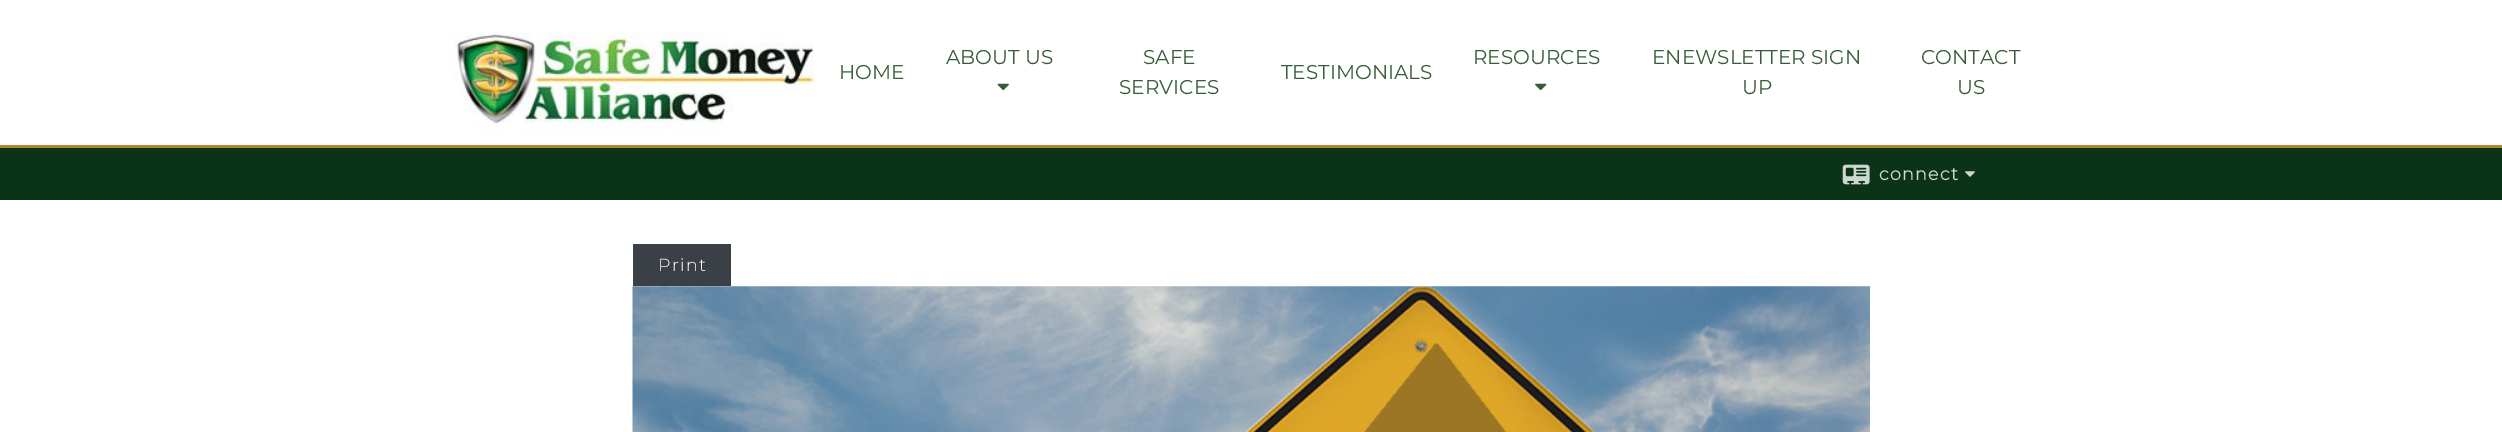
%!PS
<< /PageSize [2502 432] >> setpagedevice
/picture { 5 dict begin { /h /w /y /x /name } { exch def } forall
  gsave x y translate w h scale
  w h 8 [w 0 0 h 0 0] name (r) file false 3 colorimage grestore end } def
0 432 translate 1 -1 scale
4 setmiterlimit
0.043 0.2 0.094 setrgbcolor
0 0 2502 432 rectfill
1 setgray
0 0 2502 145 rectfill
(img1.rgb) 454 32 363 101 picture
/Montserrat-Regular [20 0 0 -20 0 0] selectfont
0.224 0.361 0.22 setrgbcolor
839 79 moveto (HOME) show
946 64 moveto (ABOUT US) show
(img2.rgb) 997 83 12 8 picture
1143 64 moveto (SAFE) show
1119 94 moveto (SERVICES) show
1281 79 moveto (TESTIMONIALS) show
1473 64 moveto (RESOURCES) show
(img3.rgb) 1535 83 12 8 picture
1652 64 moveto (ENEWSLETTER SIGN) show
1742 94 moveto (UP) show
1921 64 moveto (CONTACT) show
1957 94 moveto (US) show
0.694 0.537 0.153 setrgbcolor
0 145 2502 3 rectfill
(img4.rgb) 1842 164 28 21 picture
/Montserrat-Bold [17.5 0 0 -17.5 0 0] selectfont
0.808 0.839 0.82 setrgbcolor
1879 180 moveto 1.25 0 (connect) ashow
(img5.rgb) 1965 171 10 6 picture
1 setgray
0 200 2502 232 rectfill
0.231 0.251 0.275 setrgbcolor
633 244 98 42 rectfill
/Montserrat-Light [17.5 0 0 -17.5 0 0] selectfont
1 setgray
658 271 moveto 1.25 0 (Print) ashow
(img6.rgb) 632 286 1238 146 picture
showpage
